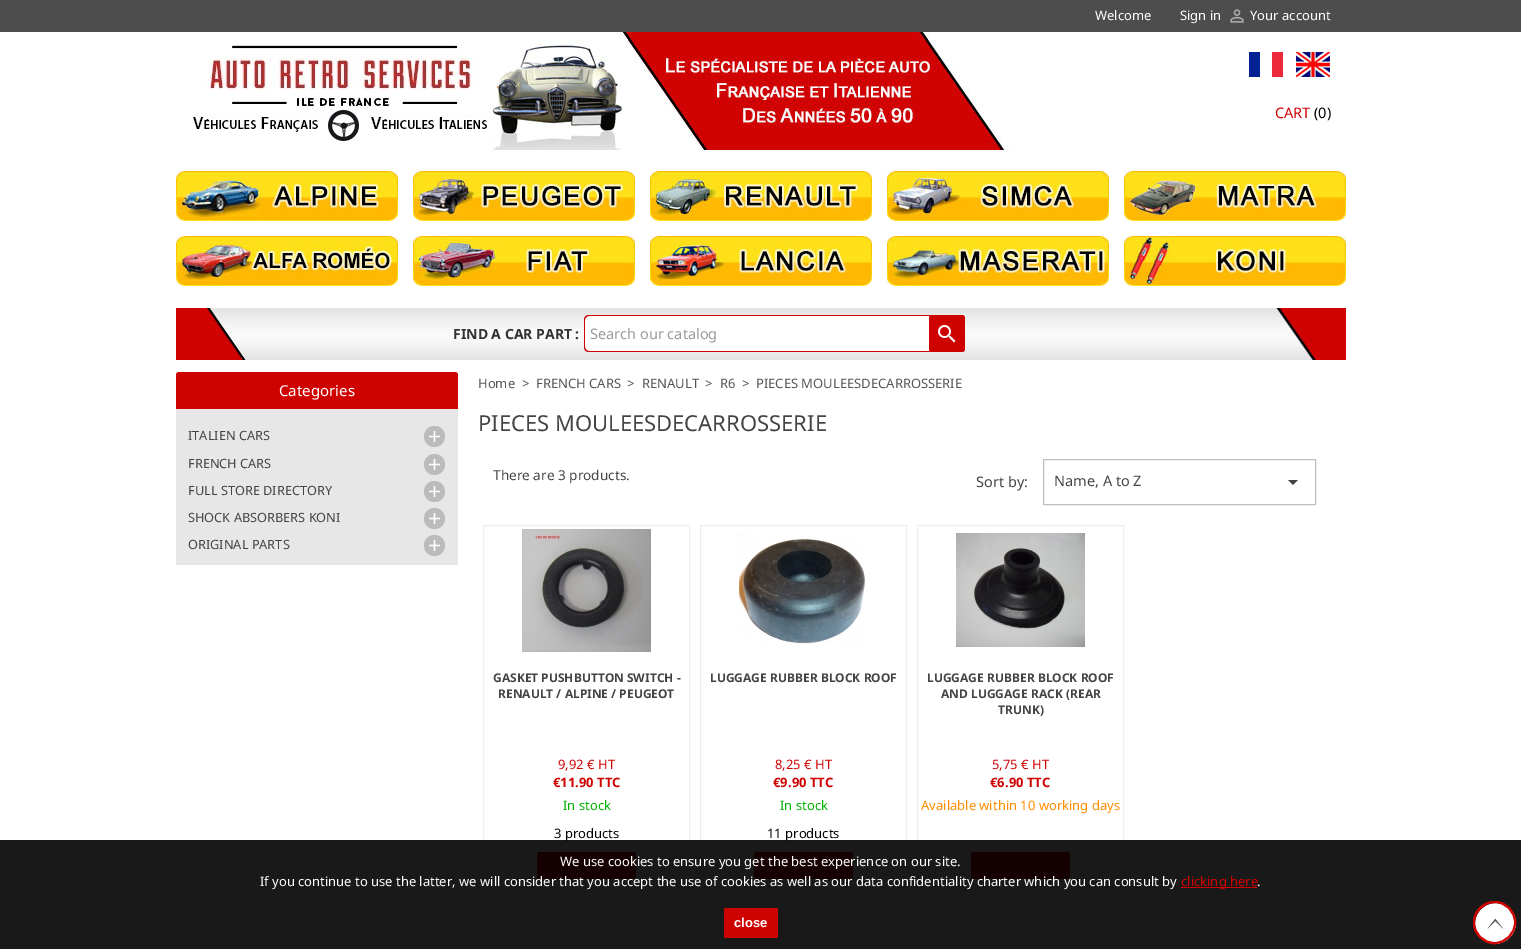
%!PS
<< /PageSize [1521 949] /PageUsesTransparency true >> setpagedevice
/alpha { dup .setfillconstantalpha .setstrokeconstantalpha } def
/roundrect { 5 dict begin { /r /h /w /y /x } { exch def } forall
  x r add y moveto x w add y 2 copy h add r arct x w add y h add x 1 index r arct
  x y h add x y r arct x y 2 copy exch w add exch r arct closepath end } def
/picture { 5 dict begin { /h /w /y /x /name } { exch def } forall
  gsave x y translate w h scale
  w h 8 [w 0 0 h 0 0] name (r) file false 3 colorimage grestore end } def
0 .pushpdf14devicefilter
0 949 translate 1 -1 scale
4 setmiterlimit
1 setgray
0 0 1521 949 rectfill
0.302 setgray
0 0 1521 32 rectfill
/NotoSans-Regular [13 0 0 -13 0 0] selectfont
1 setgray
1095 20 moveto (Welcome) show
1180 20 moveto (Sign in) show
(img1.rgb) 1230 9 14 14 picture
1250 20 moveto (Your account) show
(img2.rgb) 489 32 520 120 picture
(img3.rgb) 191 41 298 103 picture
(img4.rgb) 1249 52 34 25 picture
(img5.rgb) 1296 52 34 25 picture
/NotoSans-Regular [14.5 0 0 -14.5 0 0] selectfont
0.812 0.008 0.008 setrgbcolor
1275 118 moveto (CART) show
0 setgray
1314 118 moveto (\(0\)) show
(img6.rgb) 176 171 222 50 picture
(img7.rgb) 413 171 222 50 picture
(img8.rgb) 650 171 222 50 picture
(img9.rgb) 887 171 222 50 picture
(img10.rgb) 1124 171 222 50 picture
(img11.rgb) 176 236 222 50 picture
(img12.rgb) 413 236 222 50 picture
(img13.rgb) 650 236 222 50 picture
(img14.rgb) 887 236 222 50 picture
(img15.rgb) 1124 236 222 50 picture
(img16.rgb) 176 308 1170 52 picture
/NotoSans-Bold [14 0 0 -14 0 0] selectfont
0.2 setgray
453 339 moveto (FIND A CAR PART :) show
1 setgray
newpath 589 315 moveto 931 315 lineto 931 352 lineto 589 352 lineto 586 352 584 350 584 347 curveto 584 320 lineto 584 317 586 315 589 315 curveto closepath fill
0.816 0.008 0.008 setrgbcolor
newpath 589 315 moveto 931 315 lineto 931 352 lineto 589 352 lineto 586 352 584 350 584 347 curveto 584 320 lineto 584 317 586 315 589 315 curveto closepath 589 316 moveto 931 316 lineto 931 351 lineto 589 351 lineto 587 351 585 349 585 347 curveto 585 320 lineto 585 318 587 316 589 316 curveto closepath eofill
/NotoSans-Regular [14.5 0 0 -14.5 0 0] selectfont
0.604 setgray
590 339 moveto (Search our catalog) show
0.812 0.008 0.008 setrgbcolor
929 315 36 37 3 roundrect fill
(img17.rgb) 938 325 18 18 picture
newpath 179 372 moveto 455 372 lineto 456.5 372 458 373.5 458 375 curveto 458 409 lineto 176 409 lineto 176 375 lineto 176 373.5 177.5 372 179 372 curveto closepath fill
/NotoSans-Regular [15 0 0 -15 0 0] selectfont
1 setgray
279 396 moveto (Categories) show
0.906 setgray
176 409 282 156 rectfill
/NotoSans-Regular [12.75 0 0 -12.75 0 0] selectfont
0.267 setgray
188 440 moveto (ITALIEN CARS) show
0.733 setgray
newpath 434.5 436.5 10.5 0 360 arc closepath fill
(img18.rgb) 429 431 11 11 picture
0.267 setgray
188 468 moveto (FRENCH CARS) show
0.733 setgray
newpath 434.5 464.5 10.5 0 360 arc closepath fill
(img18.rgb) 429 459 11 11 picture
0.267 setgray
188 495 moveto (FULL STORE DIRECTORY) show
0.733 setgray
newpath 434.5 491.5 10.5 0 360 arc closepath fill
(img18.rgb) 429 486 11 11 picture
0.267 setgray
188 522 moveto (SHOCK ABSORBERS KONI) show
0.733 setgray
newpath 434.5 518.5 10.5 0 360 arc closepath fill
(img18.rgb) 429 513 11 11 picture
0.267 setgray
188 549 moveto (ORIGINAL PARTS) show
0.733 setgray
newpath 434.5 545.5 10.5 0 360 arc closepath fill
(img18.rgb) 429 540 11 11 picture
/NotoSans-Regular [13 0 0 -13 0 0] selectfont
0.333 setgray
478 388 moveto (Home) show
522 388 moveto (>) show
536 388 moveto (FRENCH CARS) show
627 388 moveto (>) show
642 388 moveto (RENAULT) show
705 388 moveto (>) show
720 388 moveto (R6) show
742 388 moveto (>) show
756 388 moveto (PIECES MOULEESDECARROSSERIE) show
/NotoSans-Regular [22 0 0 -22 0 0] selectfont
0.267 setgray
478 431 moveto (PIECES MOULEESDECARROSSERIE) show
/NotoSans-Regular [13.6 0 0 -13.6 0 0] selectfont
493 480 moveto (There are 3 products.) show
/NotoSans-Regular [14.5 0 0 -14.5 0 0] selectfont
976 487 moveto (Sort by:) show
0.749 setgray
1043.5 459.5 272 45 rectstroke
0.267 setgray
1054 486 moveto (Name, A to Z) show
newpath 1288 480 moveto 1298 480 lineto 1293 485 lineto closepath fill
0.933 setgray
483.5 525.5 206 366 rectstroke
(img19.rgb) 522 529 129 123 picture
/NotoSans-Bold [12 0 0 -12 0 0] selectfont
0.267 setgray
493 682 moveto (GASKET PUSHBUTTON SWITCH -) show
498 698 moveto (RENAULT / ALPINE / PEUGEOT) show
/NotoSans-Regular [13 0 0 -13 0 0] selectfont
0.812 0.008 0.008 setrgbcolor
558 769 moveto (9,92 € HT) show
/NotoSans-Bold [13 0 0 -13 0 0] selectfont
553 787 moveto (€11.90 TTC) show
/NotoSans-Regular [13 0 0 -13 0 0] selectfont
0 0.694 0 setrgbcolor
563 810 moveto (In stock) show
0 setgray
554 838 moveto (3 products) show
0.812 0.008 0.008 setrgbcolor
537 852 99 27 3 roundrect fill
0.933 setgray
700.5 525.5 206 366 rectstroke
(img20.rgb) 739 534 126 110 picture
/NotoSans-Bold [12 0 0 -12 0 0] selectfont
0.267 setgray
710 682 moveto (LUGGAGE RUBBER BLOCK ROOF) show
/NotoSans-Regular [13 0 0 -13 0 0] selectfont
0.812 0.008 0.008 setrgbcolor
775 769 moveto (8,25 € HT) show
/NotoSans-Bold [13 0 0 -13 0 0] selectfont
773 787 moveto (€9.90 TTC) show
/NotoSans-Regular [13 0 0 -13 0 0] selectfont
0 0.694 0 setrgbcolor
780 810 moveto (In stock) show
0 setgray
767 838 moveto (11 products) show
0.812 0.008 0.008 setrgbcolor
754 852 99 27 3 roundrect fill
0.933 setgray
917.5 525.5 206 366 rectstroke
(img21.rgb) 956 533 129 114 picture
/NotoSans-Bold [12 0 0 -12 0 0] selectfont
0.267 setgray
927 682 moveto (LUGGAGE RUBBER BLOCK ROOF) show
941 698 moveto (AND LUGGAGE RACK \(REAR) show
998 714 moveto (TRUNK\)) show
/NotoSans-Regular [13 0 0 -13 0 0] selectfont
0.812 0.008 0.008 setrgbcolor
992 769 moveto (5,75 € HT) show
/NotoSans-Bold [13 0 0 -13 0 0] selectfont
990 787 moveto (€6.90 TTC) show
/NotoSans-Regular [13 0 0 -13 0 0] selectfont
1 0.549 0 setrgbcolor
921 810 moveto (Available within 10 working days) show
0.812 0.008 0.008 setrgbcolor
971 852 99 27 3 roundrect fill
0.9 alpha
0 setgray
0 840 1521 109 rectfill
1 alpha
1 setgray
560 866 moveto (We use cookies to ensure you get the best experience on our site.) show
260 886 moveto (If you continue to use the latter, we will consider that you accept the use of cookies as well as our data confidentiality charter which you can consult by) show
0.812 0.008 0.008 setrgbcolor
1181 887 76 1 rectfill
1181 886 moveto (clicking here) show
1 setgray
1257 886 moveto (.) show
0.812 0.008 0.008 setrgbcolor
724 908 54 30 2 roundrect fill
/LiberationSans-Bold [13 0 0 -13 0 0] selectfont
1 setgray
734 927 moveto (close) show
(img22.rgb) 1475 903 41 41 picture
0.812 0.008 0.008 setrgbcolor
2 setlinewidth
newpath 1494.5 922.5 20.5 0 360 arc closepath stroke
(img23.rgb) 1475 903 41 41 picture
newpath 1494.5 922.5 20.5 0 360 arc closepath stroke
.poppdf14devicefilter showpage
